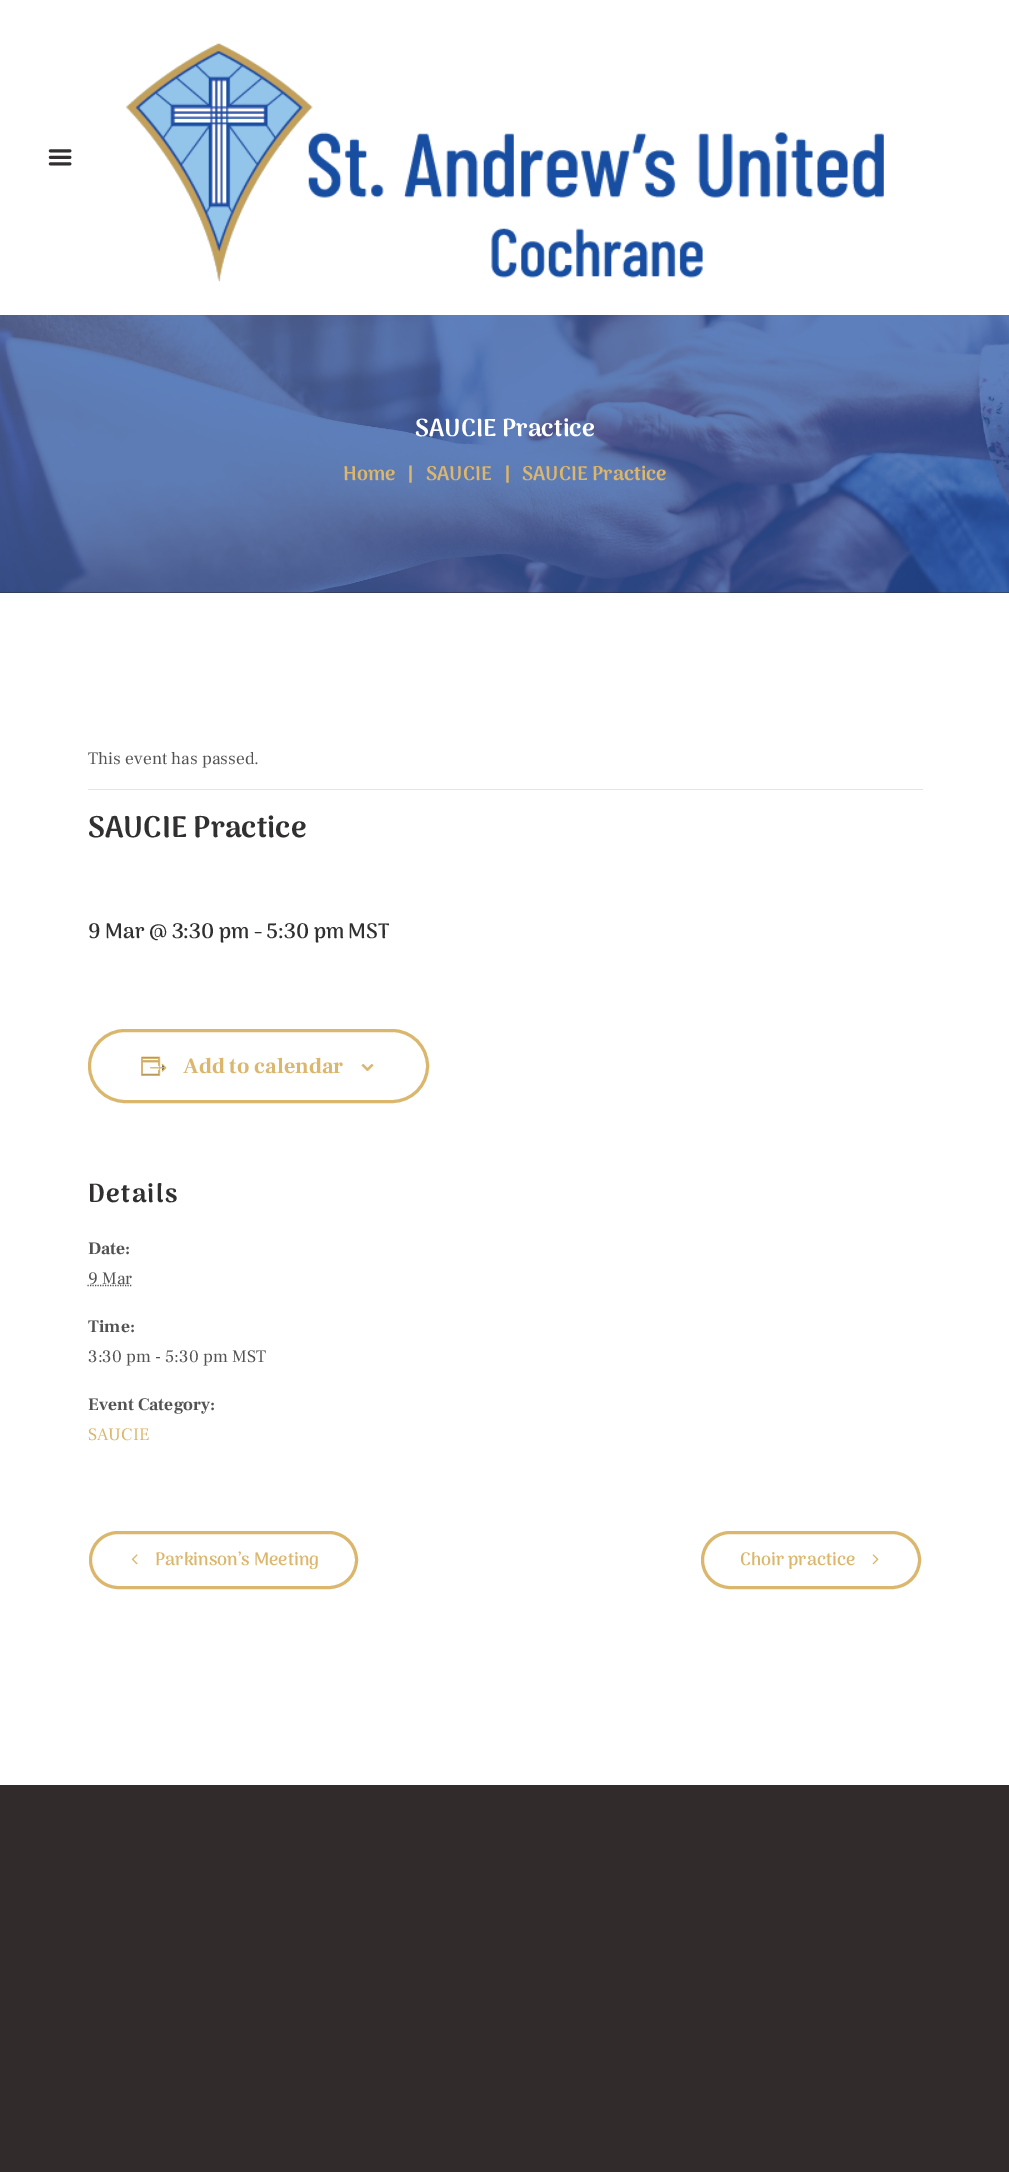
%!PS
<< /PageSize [1009 2172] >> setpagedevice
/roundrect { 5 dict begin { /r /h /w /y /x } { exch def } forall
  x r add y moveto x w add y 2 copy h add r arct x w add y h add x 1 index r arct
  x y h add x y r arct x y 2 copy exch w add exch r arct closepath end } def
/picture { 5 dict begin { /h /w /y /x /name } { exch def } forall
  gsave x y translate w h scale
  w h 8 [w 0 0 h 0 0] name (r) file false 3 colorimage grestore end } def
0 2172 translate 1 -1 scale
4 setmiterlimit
1 setgray
0 0 1009 2172 rectfill
(img1.rgb) 48 149 24 17 picture
(img2.rgb) 126 43 758 239 picture
0.192 0.184 0.184 setrgbcolor
0 592 1009 1 rectfill
(img3.rgb) 0 315 1009 278 picture
/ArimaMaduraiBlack-Black [24.5 0 0 -24.5 0 0] selectfont
1 setgray
415 436 moveto (SAUCIE Practice) show
/ArimaMaduraiBlack-Black [19.75 0 0 -19.75 0 0] selectfont
0.859 0.714 0.427 setrgbcolor
343 480 moveto (Home) show
407 480 moveto (|) show
426 480 moveto (SAUCIE) show
504 480 moveto (|) show
522 480 moveto (SAUCIE Practice) show
0.894 setgray
88 789 835 1 rectfill
/FrankRuhlLibre-Regular [17.5 0 0 -17.5 0 0] selectfont
0.325 setgray
88 764 moveto (This event has passed.) show
/ArimaMaduraiBlack-Black [29.75 0 0 -29.75 0 0] selectfont
0.192 0.184 0.184 setrgbcolor
88 837 moveto (SAUCIE Practice) show
/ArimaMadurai-Bold [21 0 0 -21 0 0] selectfont
88 938 moveto (9 Mar @ 3:30 pm - 5:30 pm MST) show
0.859 0.714 0.427 setrgbcolor
3 setlinewidth
89.5 1030.5 338 71 35.5 roundrect stroke
(img4.rgb) 141 1056 26 20 picture
/FrankRuhlLibre-Bold [22 0 0 -22 0 0] selectfont
183 1073 moveto (Add to calendar) show
(img5.rgb) 361 1064 13 7 picture
/ArimaMaduraiBlack-Black [26 0 0 -26 0 0] selectfont
0.192 0.184 0.184 setrgbcolor
88 1202 moveto 1.25 0 (Details) ashow
/FrankRuhlLibre-Bold [17.5 0 0 -17.5 0 0] selectfont
0.325 setgray
88 1254 moveto (Date:) show
1.2 setlinewidth
[1.25 1.25] 0 setdash
newpath 87.5 1285.5 moveto 131.5 1285.5 lineto stroke
/FrankRuhlLibre-Regular [17.5 0 0 -17.5 0 0] selectfont
88 1284 moveto (9 Mar) show
gsave
88 989 835 506 rectclip
/FrankRuhlLibre-Bold [17.5 0 0 -17.5 0 0] selectfont
88 1332 moveto (Time:) show
grestore
88 1362 moveto (3:30 pm - 5:30 pm MST) show
/FrankRuhlLibre-Bold [17.5 0 0 -17.5 0 0] selectfont
88 1410 moveto (Event Category:) show
/FrankRuhlLibre-Regular [17.5 0 0 -17.5 0 0] selectfont
0.859 0.714 0.427 setrgbcolor
88 1440 moveto (SAUCIE) show
3 setlinewidth
[] 0 setdash
90.5 1532.5 266 55 27.5 roundrect stroke
(img6.rgb) 131 1554 7 11 picture
/ArimaMadurai-Bold [18 0 0 -18 0 0] selectfont
155 1565 moveto (Parkinson’s Meeting) show
702.5 1532.5 217 55 27.5 roundrect stroke
740 1565 moveto (Choir practice) show
(img7.rgb) 872 1554 7 11 picture
0.196 0.169 0.169 setrgbcolor
0 1785 1009 387 rectfill
showpage
